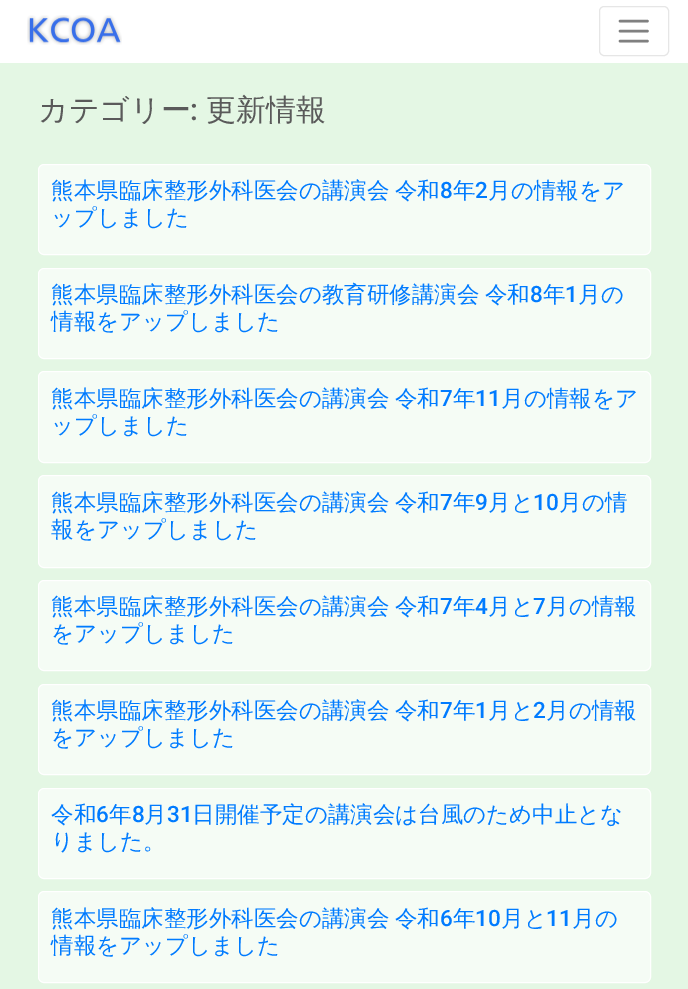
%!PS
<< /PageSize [688 989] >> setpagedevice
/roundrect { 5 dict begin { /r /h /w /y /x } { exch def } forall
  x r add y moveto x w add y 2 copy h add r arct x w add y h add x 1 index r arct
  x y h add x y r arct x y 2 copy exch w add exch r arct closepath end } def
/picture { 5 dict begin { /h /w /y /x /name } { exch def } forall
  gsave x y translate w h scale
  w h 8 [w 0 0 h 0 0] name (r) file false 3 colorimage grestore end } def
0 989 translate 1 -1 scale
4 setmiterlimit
1 setgray
0 0 688 989 rectfill
(img1.rgb) 27 15 95 30 picture
0.902 setgray
599.5 6.5 69 49 4.5 roundrect stroke
0.502 setgray
2.5 setlinewidth
1 setlinecap
newpath 620 21 moveto 647.5 21 lineto 620 31 moveto 647.5 31 lineto 620 41 moveto 647.5 41 lineto stroke
0.894 0.969 0.894 setrgbcolor
0 63 688 926 rectfill
/WenQuanYiZenHei-Medium [30 0 0 -30 0 0] selectfont
0.353 setgray
38 120 moveto (カテゴリー) show
/Roboto-Medium [30 0 0 -30 0 0] selectfont
190 120 moveto (:) show
/WenQuanYiZenHei-Medium [30 0 0 -30 0 0] selectfont
206 120 moveto (更新情報) show
0.961 0.988 0.961 setrgbcolor
38.5 164.5 612 90 5.5 roundrect gsave fill grestore
1 setgray
1 setlinewidth
0 setlinecap
stroke
/WenQuanYiZenHei-Medium [22.5 0 0 -22.5 0 0] selectfont
0 0.482 1 setrgbcolor
51 198 moveto -1 0 32 (熊本県臨床整形外科医会の講演会 令和) widthshow
/Roboto-Medium [22.5 0 0 -22.5 0 0] selectfont
440 198 moveto (8) show
/WenQuanYiZenHei-Medium [22.5 0 0 -22.5 0 0] selectfont
453 198 moveto (年) show
/Roboto-Medium [22.5 0 0 -22.5 0 0] selectfont
475 198 moveto (2) show
/WenQuanYiZenHei-Medium [22.5 0 0 -22.5 0 0] selectfont
488 198 moveto (月の情報をア) show
51 225 moveto (ップしました) show
0.961 0.988 0.961 setrgbcolor
38.5 268.5 612 90 5.5 roundrect gsave fill grestore
1 setgray
stroke
0 0.482 1 setrgbcolor
51 302 moveto -1 0 32 (熊本県臨床整形外科医会の教育研修講演会 令和) widthshow
/Roboto-Medium [22.5 0 0 -22.5 0 0] selectfont
530 302 moveto (8) show
/WenQuanYiZenHei-Medium [22.5 0 0 -22.5 0 0] selectfont
543 302 moveto (年) show
/Roboto-Medium [22.5 0 0 -22.5 0 0] selectfont
565 302 moveto (1) show
/WenQuanYiZenHei-Medium [22.5 0 0 -22.5 0 0] selectfont
578 302 moveto (月の) show
51 329 moveto (情報をアップしました) show
0.961 0.988 0.961 setrgbcolor
38.5 371.5 612 91 5.5 roundrect gsave fill grestore
1 setgray
stroke
0 0.482 1 setrgbcolor
51 406 moveto -1 0 32 (熊本県臨床整形外科医会の講演会 令和) widthshow
/Roboto-Medium [22.5 0 0 -22.5 0 0] selectfont
440 406 moveto (7) show
/WenQuanYiZenHei-Medium [22.5 0 0 -22.5 0 0] selectfont
453 406 moveto (年) show
/Roboto-Medium [22.5 0 0 -22.5 0 0] selectfont
475 406 moveto (11) show
/WenQuanYiZenHei-Medium [22.5 0 0 -22.5 0 0] selectfont
501 406 moveto (月の情報をア) show
51 433 moveto (ップしました) show
0.961 0.988 0.961 setrgbcolor
38.5 475.5 612 92 5.5 roundrect gsave fill grestore
1 setgray
stroke
0 0.482 1 setrgbcolor
51 510 moveto -1 0 32 (熊本県臨床整形外科医会の講演会 令和) widthshow
/Roboto-Medium [22.5 0 0 -22.5 0 0] selectfont
440 510 moveto (7) show
/WenQuanYiZenHei-Medium [22.5 0 0 -22.5 0 0] selectfont
453 510 moveto (年) show
/Roboto-Medium [22.5 0 0 -22.5 0 0] selectfont
475 510 moveto (9) show
/WenQuanYiZenHei-Medium [22.5 0 0 -22.5 0 0] selectfont
488 510 moveto (月と) show
/Roboto-Medium [22.5 0 0 -22.5 0 0] selectfont
533 510 moveto (10) show
/WenQuanYiZenHei-Medium [22.5 0 0 -22.5 0 0] selectfont
559 510 moveto (月の情) show
51 537 moveto (報をアップしました) show
0.961 0.988 0.961 setrgbcolor
38.5 580.5 612 90 5.5 roundrect gsave fill grestore
1 setgray
stroke
0 0.482 1 setrgbcolor
51 614 moveto -1 0 32 (熊本県臨床整形外科医会の講演会 令和) widthshow
/Roboto-Medium [22.5 0 0 -22.5 0 0] selectfont
440 614 moveto (7) show
/WenQuanYiZenHei-Medium [22.5 0 0 -22.5 0 0] selectfont
453 614 moveto (年) show
/Roboto-Medium [22.5 0 0 -22.5 0 0] selectfont
475 614 moveto (4) show
/WenQuanYiZenHei-Medium [22.5 0 0 -22.5 0 0] selectfont
488 614 moveto (月と) show
/Roboto-Medium [22.5 0 0 -22.5 0 0] selectfont
533 614 moveto (7) show
/WenQuanYiZenHei-Medium [22.5 0 0 -22.5 0 0] selectfont
546 614 moveto (月の情報) show
51 641 moveto (をアップしました) show
0.961 0.988 0.961 setrgbcolor
38.5 684.5 612 90 5.5 roundrect gsave fill grestore
1 setgray
stroke
0 0.482 1 setrgbcolor
51 718 moveto -1 0 32 (熊本県臨床整形外科医会の講演会 令和) widthshow
/Roboto-Medium [22.5 0 0 -22.5 0 0] selectfont
440 718 moveto (7) show
/WenQuanYiZenHei-Medium [22.5 0 0 -22.5 0 0] selectfont
453 718 moveto (年) show
/Roboto-Medium [22.5 0 0 -22.5 0 0] selectfont
475 718 moveto (1) show
/WenQuanYiZenHei-Medium [22.5 0 0 -22.5 0 0] selectfont
488 718 moveto (月と) show
/Roboto-Medium [22.5 0 0 -22.5 0 0] selectfont
533 718 moveto (2) show
/WenQuanYiZenHei-Medium [22.5 0 0 -22.5 0 0] selectfont
546 718 moveto (月の情報) show
51 745 moveto (をアップしました) show
0.961 0.988 0.961 setrgbcolor
38.5 788.5 612 90 5.5 roundrect gsave fill grestore
1 setgray
stroke
0 0.482 1 setrgbcolor
51 822 moveto (令和) show
/Roboto-Medium [22.5 0 0 -22.5 0 0] selectfont
96 822 moveto (6) show
/WenQuanYiZenHei-Medium [22.5 0 0 -22.5 0 0] selectfont
109 822 moveto (年) show
/Roboto-Medium [22.5 0 0 -22.5 0 0] selectfont
132 822 moveto (8) show
/WenQuanYiZenHei-Medium [22.5 0 0 -22.5 0 0] selectfont
144 822 moveto (月) show
/Roboto-Medium [22.5 0 0 -22.5 0 0] selectfont
167 822 moveto (31) show
/WenQuanYiZenHei-Medium [22.5 0 0 -22.5 0 0] selectfont
192 822 moveto (日開催予定の講演会は台風のため中止とな) show
51 849 moveto (りました。) show
0.961 0.988 0.961 setrgbcolor
38.5 891.5 612 91 5.5 roundrect gsave fill grestore
1 setgray
stroke
0 0.482 1 setrgbcolor
51 926 moveto -1 0 32 (熊本県臨床整形外科医会の講演会 令和) widthshow
/Roboto-Medium [22.5 0 0 -22.5 0 0] selectfont
440 926 moveto (6) show
/WenQuanYiZenHei-Medium [22.5 0 0 -22.5 0 0] selectfont
453 926 moveto (年) show
/Roboto-Medium [22.5 0 0 -22.5 0 0] selectfont
475 926 moveto (10) show
/WenQuanYiZenHei-Medium [22.5 0 0 -22.5 0 0] selectfont
501 926 moveto (月と) show
/Roboto-Medium [22.5 0 0 -22.5 0 0] selectfont
546 926 moveto (11) show
/WenQuanYiZenHei-Medium [22.5 0 0 -22.5 0 0] selectfont
572 926 moveto (月の) show
51 953 moveto (情報をアップしました) show
showpage
